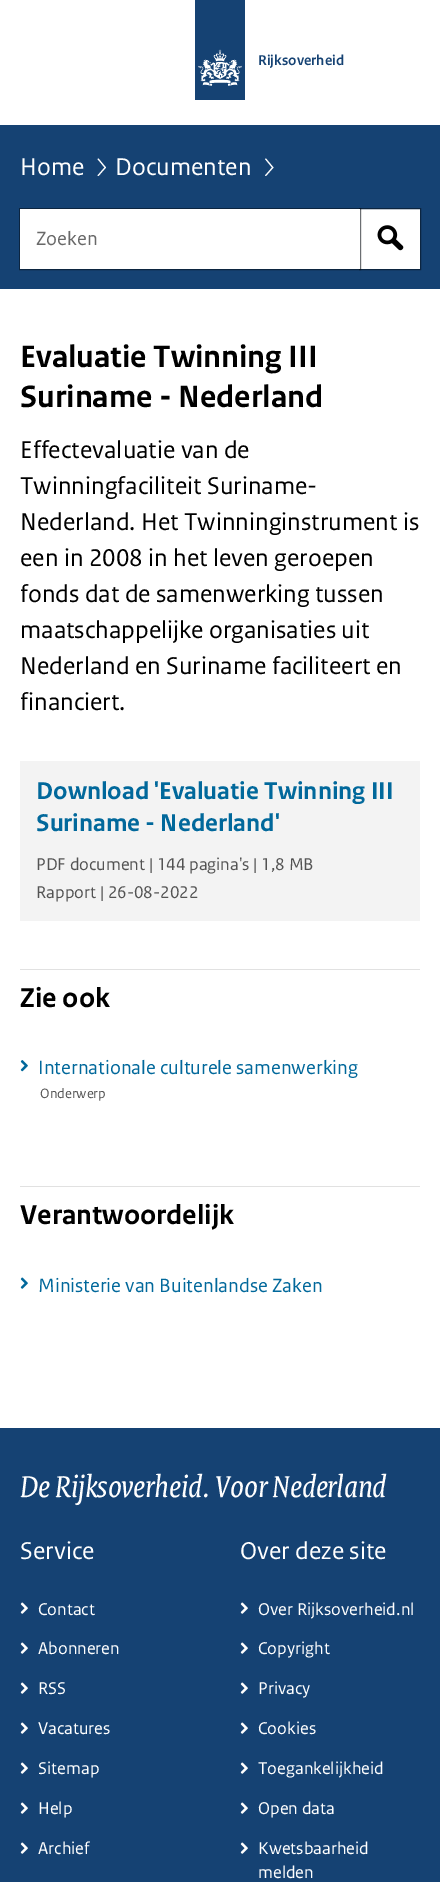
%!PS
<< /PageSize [440 1882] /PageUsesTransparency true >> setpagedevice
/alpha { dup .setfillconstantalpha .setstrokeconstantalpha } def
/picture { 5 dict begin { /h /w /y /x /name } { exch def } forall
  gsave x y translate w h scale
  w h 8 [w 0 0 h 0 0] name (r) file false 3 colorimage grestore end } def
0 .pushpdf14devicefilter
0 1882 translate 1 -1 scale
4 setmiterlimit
1 setgray
0 0 440 1882 rectfill
(img1.rgb) 195 0 50 100 picture
/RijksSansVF-SemiBold [15 0 0 -15 0 0] selectfont
0.082 0.259 0.451 setrgbcolor
258 65 moveto (Rijksoverheid) show
0 125 440 164 rectfill
/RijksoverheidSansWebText-Regular [25.6 0 0 -25.6 0 0] selectfont
1 setgray
20 175 moveto (Home) show
newpath 98.5 176 moveto 97.5 175.5 lineto 104.5 167.5 lineto 97.5 159 lineto 98.5 158.5 lineto 106 167.5 lineto closepath fill
115 175 moveto (Documenten) show
newpath 266 176 moveto 265 175.5 lineto 272 167.5 lineto 265 159 lineto 266 158.5 lineto 273.5 167.5 lineto closepath fill
newpath 359.5 208.5 moveto 420.5 208.5 lineto 420.5 269.5 lineto 359.5 269.5 lineto closepath gsave fill grestore
0.047 0.145 0.251 setrgbcolor
stroke
0.44 alpha
0 setgray
19.5 208.5 341 61 rectstroke
1 alpha
1 setgray
20 209 340 60 rectfill
/RijksoverheidSansWebText-Regular [20.25 0 0 -20.25 0 0] selectfont
0.412 setgray
36 245 moveto (Zoeken) show
(img2.rgb) 377 225 27 26 picture
/RijksoverheidSansWebText-Bold [32.5 0 0 -32.5 0 0] selectfont
0 setgray
20 367 moveto (Evaluatie Twinning III) show
20 407 moveto (Suriname - Nederland) show
/RijksoverheidSansWebText-Regular [25.6 0 0 -25.6 0 0] selectfont
20 458 moveto (Effectevaluatie van de) show
20 494 moveto (Twinningfaciliteit Suriname-) show
20 530 moveto (Nederland. Het Twinninginstrument is) show
20 566 moveto (een in 2008 in het leven geroepen) show
20 602 moveto (fonds dat de samenwerking tussen) show
20 638 moveto (maatschappelijke organisaties uit) show
20 674 moveto (Nederland en Suriname faciliteert en) show
20 710 moveto (financiert.) show
0.953 setgray
20 761 400 160 rectfill
/RijksoverheidSansWebText-Bold [25.6 0 0 -25.6 0 0] selectfont
0.004 0.408 0.608 setrgbcolor
36 799 moveto (Download 'Evaluatie Twinning III) show
36 831 moveto (Suriname - Nederland') show
/RijksoverheidSansWebText-Regular [18 0 0 -18 0 0] selectfont
0.325 setgray
36 870 moveto (PDF document | 144 pagina's | 1,8 MB) show
36 898 moveto (Rapport | 26-08-2022) show
0.882 setgray
20 969 400 1 rectfill
/RijksoverheidSansWebText-Bold [28.75 0 0 -28.75 0 0] selectfont
0 setgray
20 1007 moveto (Zie ook) show
(img3.rgb) 20 1060 8 12 picture
/RijksoverheidSansWebText-Regular [20.25 0 0 -20.25 0 0] selectfont
0.004 0.408 0.608 setrgbcolor
38 1074 moveto (Internationale culturele samenwerking) show
/RijksoverheidSansWebText-Regular [14.25 0 0 -14.25 0 0] selectfont
0.325 setgray
40 1098 moveto (Onderwerp) show
0.882 setgray
20 1186 400 1 rectfill
/RijksoverheidSansWebText-Bold [28.75 0 0 -28.75 0 0] selectfont
0 setgray
20 1224 moveto (Verantwoordelijk) show
(img4.rgb) 20 1277 8 12 picture
/RijksoverheidSansWebText-Regular [20.25 0 0 -20.25 0 0] selectfont
0.004 0.408 0.608 setrgbcolor
38 1292 moveto (Ministerie van Buitenlandse Zaken) show
0.082 0.259 0.451 setrgbcolor
0 1428 440 454 rectfill
/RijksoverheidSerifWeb-Italic [32.5 0 0 -32.5 0 0] selectfont
1 setgray
20 1497 moveto (De Rijksoverheid. Voor Nederland) show
/RijksoverheidSansWebText-Regular [25.6 0 0 -25.6 0 0] selectfont
20 1559 moveto (Service) show
(img5.rgb) 20 1602 8 12 picture
/RijksoverheidSansWebText-Regular [18 0 0 -18 0 0] selectfont
38 1615 moveto (Contact) show
(img5.rgb) 20 1642 8 12 picture
38 1654 moveto (Abonneren) show
(img5.rgb) 20 1682 8 12 picture
38 1694 moveto (RSS) show
(img5.rgb) 20 1722 8 12 picture
38 1734 moveto (Vacatures) show
(img5.rgb) 20 1762 8 12 picture
38 1774 moveto (Sitemap) show
(img5.rgb) 20 1802 8 12 picture
38 1814 moveto (Help) show
(img5.rgb) 20 1842 8 12 picture
38 1854 moveto (Archief) show
/RijksoverheidSansWebText-Regular [25.6 0 0 -25.6 0 0] selectfont
240 1559 moveto (Over deze site) show
(img5.rgb) 240 1602 8 12 picture
/RijksoverheidSansWebText-Regular [18 0 0 -18 0 0] selectfont
258 1615 moveto (Over Rijksoverheid.nl) show
(img5.rgb) 240 1642 8 12 picture
258 1654 moveto (Copyright) show
(img5.rgb) 240 1682 8 12 picture
258 1694 moveto (Privacy) show
(img5.rgb) 240 1722 8 12 picture
258 1734 moveto (Cookies) show
(img5.rgb) 240 1762 8 12 picture
258 1774 moveto (Toegankelijkheid) show
(img5.rgb) 240 1802 8 12 picture
258 1814 moveto (Open data) show
(img5.rgb) 240 1842 8 12 picture
258 1854 moveto (Kwetsbaarheid) show
258 1878 moveto (melden) show
.poppdf14devicefilter showpage
